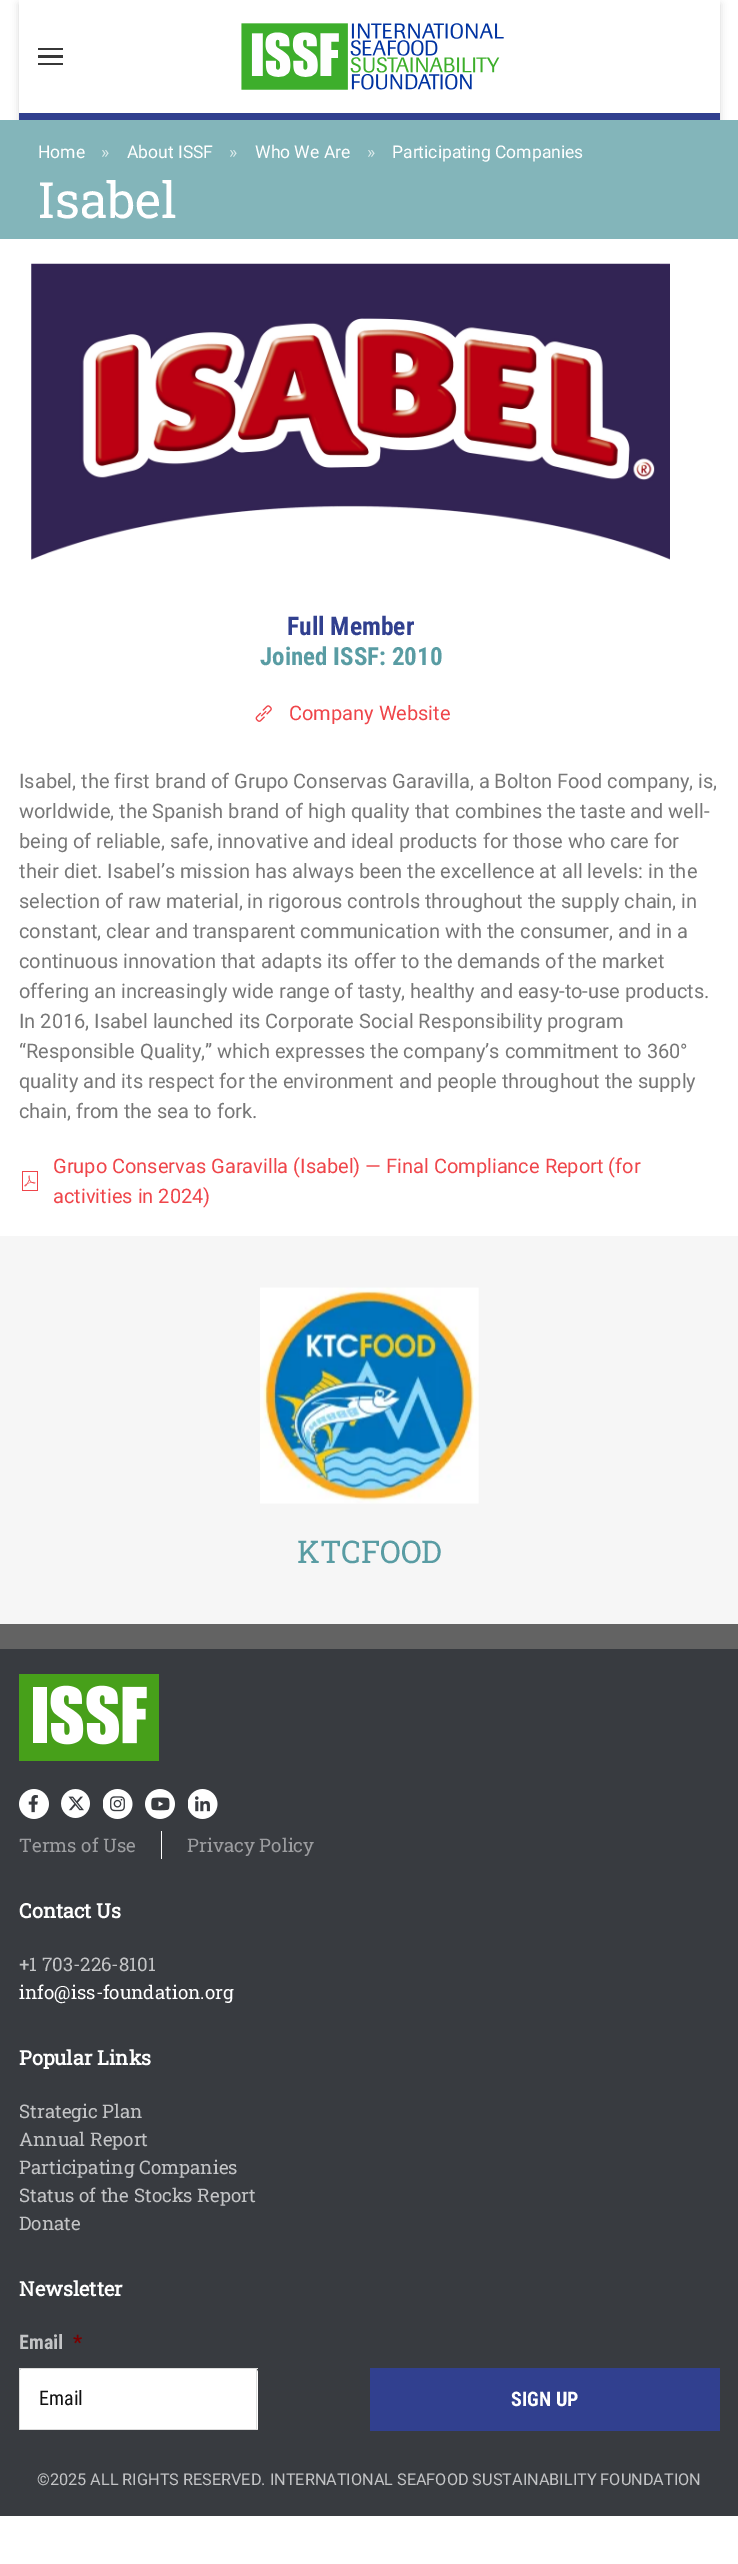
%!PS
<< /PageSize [738 2564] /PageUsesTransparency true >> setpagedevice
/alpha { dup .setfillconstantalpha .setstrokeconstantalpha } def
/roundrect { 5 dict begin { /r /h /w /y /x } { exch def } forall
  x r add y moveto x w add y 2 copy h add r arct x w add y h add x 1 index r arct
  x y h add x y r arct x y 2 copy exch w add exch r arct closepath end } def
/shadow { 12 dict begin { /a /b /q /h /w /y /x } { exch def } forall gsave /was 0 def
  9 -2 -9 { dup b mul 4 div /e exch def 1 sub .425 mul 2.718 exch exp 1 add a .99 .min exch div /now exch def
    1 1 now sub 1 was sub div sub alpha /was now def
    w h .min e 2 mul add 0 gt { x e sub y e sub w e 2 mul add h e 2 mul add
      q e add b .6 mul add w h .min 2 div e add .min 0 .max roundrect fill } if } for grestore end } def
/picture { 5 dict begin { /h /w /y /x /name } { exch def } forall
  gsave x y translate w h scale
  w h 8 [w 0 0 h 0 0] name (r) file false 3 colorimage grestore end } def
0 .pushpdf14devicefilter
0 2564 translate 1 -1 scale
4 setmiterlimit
1 setgray
0 0 738 2564 rectfill
gsave
newpath 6 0 moveto 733 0 lineto 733 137 lineto 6 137 lineto closepath 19 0 moveto 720 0 lineto 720 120 lineto 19 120 lineto closepath eoclip newpath
0 setgray
19 4 701 120 0 4 0.16 shadow
grestore
0.192 0.251 0.561 setrgbcolor
19 113 701 7 rectfill
0.216 setgray
38 48 25 2 rectfill
38 55 25 3 rectfill
38 63 25 2 rectfill
(img1.rgb) 241 23 263 67 picture
0.514 0.71 0.729 setrgbcolor
0 120 738 119 rectfill
/Roboto-Regular [17.5 0 0 -17.5 0 0] selectfont
1 setgray
38 158 moveto (Home) show
0.855 0.914 0.918 setrgbcolor
101 158 moveto (») show
1 setgray
127 158 moveto (About ISSF) show
0.855 0.914 0.918 setrgbcolor
229 158 moveto (») show
1 setgray
255 158 moveto (Who We Are) show
0.855 0.914 0.918 setrgbcolor
367 158 moveto (») show
1 setgray
392 158 moveto (Participating Companies) show
/RobotoSlab-Regular [50 0 0 -50 0 0] selectfont
38 218 moveto (Isabel) show
(img2.rgb) 31 263 639 297 picture
/RobotoCondensed-Bold [25.5 0 0 -25.5 0 0] selectfont
0.192 0.251 0.561 setrgbcolor
287 635 moveto (Full Member) show
/RobotoCondensed-Bold [25 0 0 -25 0 0] selectfont
0.349 0.612 0.639 setrgbcolor
260 665 moveto (Joined ISSF: 2010) show
(img3.rgb) 255 705 17 17 picture
/Roboto-Regular [20 0 0 -20 0 0] selectfont
0.937 0.271 0.29 setrgbcolor
289 720 moveto (Company Website) show
0.467 setgray
19 788 moveto (Isabel, the first brand of Grupo Conservas Garavilla, a Bolton Food company, is,) show
19 818 moveto (worldwide, the Spanish brand of high quality that combines the taste and well-) show
19 848 moveto (being of reliable, safe, innovative and ideal products for those who care for) show
19 878 moveto (their diet. Isabel’s mission has always been the excellence at all levels: in the) show
19 908 moveto (selection of raw material, in rigorous controls throughout the supply chain, in) show
19 938 moveto (constant, clear and transparent communication with the consumer, and in a) show
19 968 moveto (continuous innovation that adapts its offer to the demands of the market) show
19 998 moveto (offering an increasingly wide range of tasty, healthy and easy-to-use products.) show
19 1028 moveto (In 2016, Isabel launched its Corporate Social Responsibility program) show
19 1058 moveto (“Responsible Quality,” which expresses the company’s commitment to 360°) show
19 1088 moveto (quality and its respect for the environment and people throughout the supply) show
19 1118 moveto (chain, from the sea to fork.) show
0.937 0.271 0.29 setrgbcolor
53 1173 moveto (Grupo Conservas Garavilla \(Isabel\) — Final Compliance Report \(for) show
(img4.rgb) 22 1171 16 20 picture
53 1203 moveto (activities in 2024\)) show
0.965 setgray
0 1236 738 388 rectfill
(img5.rgb) 260 1287 219 217 picture
/RobotoSlab-Regular [31.25 0 0 -31.25 0 0] selectfont
0.349 0.612 0.639 setrgbcolor
297 1563 moveto (KTCFOOD) show
0.22 0.231 0.251 setrgbcolor
0 1649 738 867 rectfill
0.388 setgray
0 1624 738 25 rectfill
(img6.rgb) 19 1674 140 87 picture
(img7.rgb) 19 1789 30 30 picture
(img8.rgb) 61 1789 29 29 picture
(img9.rgb) 103 1789 30 30 picture
(img10.rgb) 145 1789 30 30 picture
(img11.rgb) 188 1789 30 30 picture
/RobotoSlab-Regular [18.75 0 0 -18.75 0 0] selectfont
0.612 0.616 0.627 setrgbcolor
19 1852 moveto (Terms of Use) show
1 setgray
161 1831 1 28 rectfill
0.612 0.616 0.627 setrgbcolor
187 1852 moveto (Privacy Policy) show
/RobotoSlab-Bold [20 0 0 -20 0 0] selectfont
1 setgray
19 1918 moveto (Contact Us) show
/RobotoSlab-Regular [18.75 0 0 -18.75 0 0] selectfont
0.765 0.769 0.776 setrgbcolor
19 1971 moveto (+1 703-226-8101) show
1 setgray
19 1999 moveto (info@iss-foundation.org) show
/RobotoSlab-Bold [20 0 0 -20 0 0] selectfont
19 2065 moveto (Popular Links) show
/RobotoSlab-Regular [18.75 0 0 -18.75 0 0] selectfont
0.765 0.769 0.776 setrgbcolor
19 2118 moveto (Strategic Plan) show
19 2146 moveto (Annual Report) show
19 2174 moveto (Participating Companies) show
19 2202 moveto (Status of the Stocks Report) show
19 2230 moveto (Donate) show
/RobotoSlab-Bold [20 0 0 -20 0 0] selectfont
1 setgray
19 2296 moveto (Newsletter) show
/RobotoCondensed-Bold [20 0 0 -20 0 0] selectfont
0.765 0.769 0.776 setrgbcolor
19 2349 moveto (Email) show
0.475 0 0 setrgbcolor
73 2349 moveto (*) show
1 setgray
newpath 24 2368 moveto 253 2368 lineto 256 2368 258 2370 258 2373 curveto 258 2430 lineto 19 2430 lineto 19 2373 lineto 19 2370 21 2368 24 2368 curveto closepath fill
0.867 setgray
19 2368 239 1 rectfill
19 2429 60 1 rectfill
19 2368 1 62 rectfill
/RobotoCondensed-Regular [20 0 0 -20 0 0] selectfont
0.067 setgray
39 2405 moveto (Email) show
0.867 setgray
256 2368 1 62 rectfill
79 2429 179 1 rectfill
0.192 0.251 0.561 setrgbcolor
370 2368 350 63 rectfill
/RobotoCondensed-Bold [20 0 0 -20 0 0] selectfont
1 setgray
511 2406 moveto (SIGN UP) show
/Roboto-Regular [16.25 0 0 -16.25 0 0] selectfont
0.765 0.769 0.776 setrgbcolor
37 2485 moveto (©2025 ALL RIGHTS RESERVED. INTERNATIONAL SEAFOOD SUSTAINABILITY FOUNDATION) show
.poppdf14devicefilter showpage
